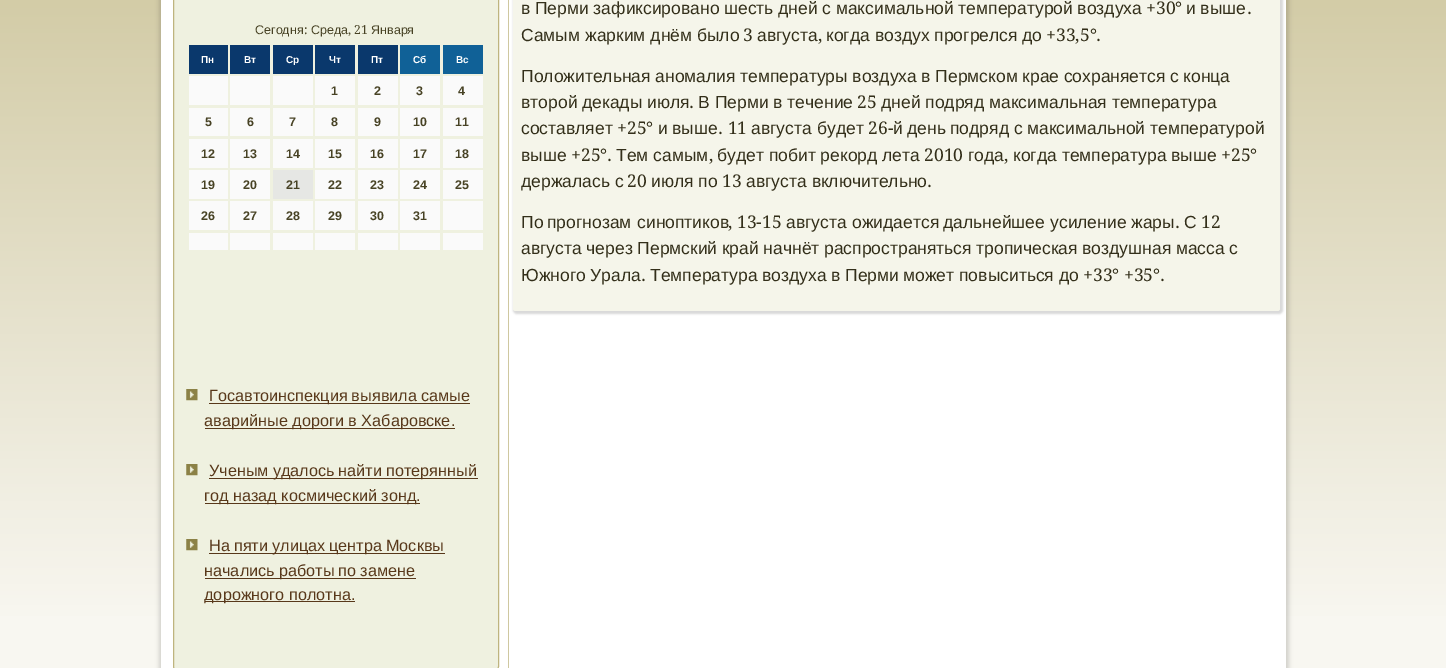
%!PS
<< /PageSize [1446 668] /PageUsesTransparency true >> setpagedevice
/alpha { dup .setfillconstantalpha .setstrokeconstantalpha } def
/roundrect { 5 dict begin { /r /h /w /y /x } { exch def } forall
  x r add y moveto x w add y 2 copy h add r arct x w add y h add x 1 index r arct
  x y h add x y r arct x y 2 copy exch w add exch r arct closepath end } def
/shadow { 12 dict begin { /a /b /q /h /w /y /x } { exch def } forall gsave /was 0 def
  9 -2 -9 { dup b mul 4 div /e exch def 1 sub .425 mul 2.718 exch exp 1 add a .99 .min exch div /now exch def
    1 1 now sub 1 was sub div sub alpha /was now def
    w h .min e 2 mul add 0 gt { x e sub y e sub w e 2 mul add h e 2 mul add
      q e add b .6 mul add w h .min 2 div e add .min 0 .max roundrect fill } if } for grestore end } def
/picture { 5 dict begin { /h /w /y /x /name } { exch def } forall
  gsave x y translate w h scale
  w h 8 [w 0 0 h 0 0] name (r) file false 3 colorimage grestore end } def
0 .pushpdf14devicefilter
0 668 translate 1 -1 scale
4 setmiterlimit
1 setgray
0 0 1446 668 rectfill
gsave newpath 0 0 moveto 1446 0 lineto 1446 668 lineto 0 668 lineto closepath clip newpath
<< /ShadingType 2 /ColorSpace /DeviceRGB /Coords [723 0 723 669] /Extend [true true] /Function << /FunctionType 3 /Domain [0 1] /Functions [<< /FunctionType 2 /Domain [0 1] /C0 [0.827 0.8 0.655] /C1 [0.973 0.969 0.945] /N 1 >> << /FunctionType 2 /Domain [0 1] /C0 [0.973 0.969 0.945] /C1 [0.973 0.969 0.945] /N 1 >>] /Bounds [0.93] /Encode [0 1 0 1] >> >> shfill grestore
0 setgray
159 -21 1130 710 15 2 0.15 shadow
1 setgray
161 0 1125 668 rectfill
0.812 0.784 0.627 setrgbcolor
508 0 1 668 rectfill
0.937 0.945 0.878 setrgbcolor
173.5 -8.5 325 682 7.5 roundrect gsave fill grestore
0.745 0.706 0.494 setrgbcolor
stroke
/LiberationSans-Regular [12.5 0 0 -12.5 0 0] selectfont
0.278 0.259 0.141 setrgbcolor
255 34 moveto (Сегодня) show
/DroidSerif-Regular [12.5 0 0 -12.5 0 0] selectfont
304 34 moveto (:) show
/LiberationSans-Regular [12.5 0 0 -12.5 0 0] selectfont
311 34 moveto (Среда) show
/DroidSerif-Regular [12.5 0 0 -12.5 0 0] selectfont
348 34 moveto (, 21) show
/LiberationSans-Regular [12.5 0 0 -12.5 0 0] selectfont
371 34 moveto (Января) show
0.039 0.22 0.424 setrgbcolor
189 45 39 29 rectfill
/LiberationSans-Bold [10 0 0 -10 0 0] selectfont
1 setgray
201 63 moveto (Пн) show
0.039 0.22 0.424 setrgbcolor
230 45 40 29 rectfill
1 setgray
244 63 moveto (Вт) show
0.039 0.22 0.424 setrgbcolor
273 45 40 29 rectfill
1 setgray
286 63 moveto (Ср) show
0.039 0.22 0.424 setrgbcolor
315 45 40 29 rectfill
1 setgray
329 63 moveto (Чт) show
0.039 0.22 0.424 setrgbcolor
358 45 40 29 rectfill
1 setgray
371 63 moveto (Пт) show
0.063 0.38 0.592 setrgbcolor
400 45 40 29 rectfill
1 setgray
413 63 moveto (Сб) show
0.063 0.38 0.592 setrgbcolor
443 45 40 29 rectfill
1 setgray
456 63 moveto (Вс) show
0.98 setgray
189 76 39 29 rectfill
230 76 40 29 rectfill
273 76 40 29 rectfill
315 76 40 29 rectfill
/LiberationSans-Bold [12.5 0 0 -12.5 0 0] selectfont
0.278 0.259 0.141 setrgbcolor
331 95 moveto (1) show
0.98 setgray
358 76 40 29 rectfill
0.278 0.259 0.141 setrgbcolor
374 95 moveto (2) show
0.98 setgray
400 76 40 29 rectfill
0.278 0.259 0.141 setrgbcolor
416 95 moveto (3) show
0.98 setgray
443 76 40 29 rectfill
0.278 0.259 0.141 setrgbcolor
458 95 moveto (4) show
0.98 setgray
189 108 39 28 rectfill
0.278 0.259 0.141 setrgbcolor
205 126 moveto (5) show
0.98 setgray
230 108 40 28 rectfill
0.278 0.259 0.141 setrgbcolor
247 126 moveto (6) show
0.98 setgray
273 108 40 28 rectfill
0.278 0.259 0.141 setrgbcolor
289 126 moveto (7) show
0.98 setgray
315 108 40 28 rectfill
0.278 0.259 0.141 setrgbcolor
331 126 moveto (8) show
0.98 setgray
358 108 40 28 rectfill
0.278 0.259 0.141 setrgbcolor
374 126 moveto (9) show
0.98 setgray
400 108 40 28 rectfill
0.278 0.259 0.141 setrgbcolor
413 126 moveto (10) show
0.98 setgray
443 108 40 28 rectfill
0.278 0.259 0.141 setrgbcolor
455 126 moveto (11) show
0.98 setgray
189 139 39 29 rectfill
0.278 0.259 0.141 setrgbcolor
201 158 moveto (12) show
0.98 setgray
230 139 40 29 rectfill
0.278 0.259 0.141 setrgbcolor
243 158 moveto (13) show
0.98 setgray
273 139 40 29 rectfill
0.278 0.259 0.141 setrgbcolor
286 158 moveto (14) show
0.98 setgray
315 139 40 29 rectfill
0.278 0.259 0.141 setrgbcolor
328 158 moveto (15) show
0.98 setgray
358 139 40 29 rectfill
0.278 0.259 0.141 setrgbcolor
370 158 moveto (16) show
0.98 setgray
400 139 40 29 rectfill
0.278 0.259 0.141 setrgbcolor
413 158 moveto (17) show
0.98 setgray
443 139 40 29 rectfill
0.278 0.259 0.141 setrgbcolor
455 158 moveto (18) show
0.98 setgray
189 170 39 29 rectfill
0.278 0.259 0.141 setrgbcolor
201 189 moveto (19) show
0.98 setgray
230 170 40 29 rectfill
0.278 0.259 0.141 setrgbcolor
243 189 moveto (20) show
0.902 0.906 0.894 setrgbcolor
273 170 40 29 rectfill
0.278 0.259 0.141 setrgbcolor
286 189 moveto (21) show
0.98 setgray
315 170 40 29 rectfill
0.278 0.259 0.141 setrgbcolor
328 189 moveto (22) show
0.98 setgray
358 170 40 29 rectfill
0.278 0.259 0.141 setrgbcolor
370 189 moveto (23) show
0.98 setgray
400 170 40 29 rectfill
0.278 0.259 0.141 setrgbcolor
413 189 moveto (24) show
0.98 setgray
443 170 40 29 rectfill
0.278 0.259 0.141 setrgbcolor
455 189 moveto (25) show
0.98 setgray
189 201 39 29 rectfill
0.278 0.259 0.141 setrgbcolor
201 220 moveto (26) show
0.98 setgray
230 201 40 29 rectfill
0.278 0.259 0.141 setrgbcolor
243 220 moveto (27) show
0.98 setgray
273 201 40 29 rectfill
0.278 0.259 0.141 setrgbcolor
286 220 moveto (28) show
0.98 setgray
315 201 40 29 rectfill
0.278 0.259 0.141 setrgbcolor
328 220 moveto (29) show
0.98 setgray
358 201 40 29 rectfill
0.278 0.259 0.141 setrgbcolor
370 220 moveto (30) show
0.98 setgray
400 201 40 29 rectfill
0.278 0.259 0.141 setrgbcolor
413 220 moveto (31) show
0.98 setgray
443 201 40 29 rectfill
189 233 39 17 rectfill
230 233 40 17 rectfill
273 233 40 17 rectfill
315 233 40 17 rectfill
358 233 40 17 rectfill
400 233 40 17 rectfill
443 233 40 17 rectfill
(img1.rgb) 186 389 12 12 picture
0.345 0.22 0.102 setrgbcolor
209 403 261 1 rectfill
/LiberationSans-Regular [16.25 0 0 -16.25 0 0] selectfont
209 401 moveto -0.5 0 32 (Госавтоинспекция выявила самые) widthshow
205 428 250 1 rectfill
204 426 moveto (аварийные дороги в Хабаровске.) show
(img1.rgb) 186 464 12 12 picture
209 478 269 1 rectfill
209 476 moveto -0.5 0 32 (Ученым удалось найти потерянный) widthshow
205 503 215 1 rectfill
204 501 moveto (год назад космический зонд.) show
(img1.rgb) 186 539 12 12 picture
209 553 236 1 rectfill
209 551 moveto -0.5 0 32 (На пяти улицах центра Москвы) widthshow
205 578 211 1 rectfill
204 576 moveto -0.5 0 32 (начались работы по замене) widthshow
205 601 150 1 rectfill
204 600 moveto (дорожного полотна.) show
0 setgray
513 -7 770 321 4 1 0.15 shadow
0.961 0.961 0.918 setrgbcolor
513 -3 767 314 2.5 roundrect fill
/LiberationSans-Regular [17.5 0 0 -17.5 0 0] selectfont
0.2 0.184 0.102 setrgbcolor
521 14 moveto -0.25 0 32 (в Перми зафиксировано шесть дней с максимальной температурой воздуха) widthshow
/DroidSerif-Regular [17.5 0 0 -17.5 0 0] selectfont
1146 14 moveto (+30°) show
/LiberationSans-Regular [17.5 0 0 -17.5 0 0] selectfont
1186 14 moveto -0.25 0 32 (и выше) widthshow
/DroidSerif-Regular [17.5 0 0 -17.5 0 0] selectfont
1247 14 moveto (.) show
/LiberationSans-Regular [17.5 0 0 -17.5 0 0] selectfont
521 41 moveto (Самым жарким днём было) show
/DroidSerif-Regular [17.5 0 0 -17.5 0 0] selectfont
743 41 moveto (3) show
/LiberationSans-Regular [17.5 0 0 -17.5 0 0] selectfont
757 41 moveto (августа) show
/DroidSerif-Regular [17.5 0 0 -17.5 0 0] selectfont
818 41 moveto (,) show
/LiberationSans-Regular [17.5 0 0 -17.5 0 0] selectfont
826 41 moveto (когда воздух прогрелся до) show
/DroidSerif-Regular [17.5 0 0 -17.5 0 0] selectfont
1046 41 moveto (+33,5°.) show
/LiberationSans-Regular [17.5 0 0 -17.5 0 0] selectfont
521 82 moveto -0.25 0 32 (Положительная аномалия температуры воздуха в Пермском крае сохраняется с конца) widthshow
521 108 moveto (второй декады июля) show
/DroidSerif-Regular [17.5 0 0 -17.5 0 0] selectfont
689 108 moveto (.) show
/LiberationSans-Regular [17.5 0 0 -17.5 0 0] selectfont
698 108 moveto (В Перми в течение) show
/DroidSerif-Regular [17.5 0 0 -17.5 0 0] selectfont
857 108 moveto (25) show
/LiberationSans-Regular [17.5 0 0 -17.5 0 0] selectfont
881 108 moveto (дней подряд максимальная температура) show
521 134 moveto (составляет) show
/DroidSerif-Regular [17.5 0 0 -17.5 0 0] selectfont
617 134 moveto (+25°) show
/LiberationSans-Regular [17.5 0 0 -17.5 0 0] selectfont
658 134 moveto (и) show
672 134 moveto (выше) show
/DroidSerif-Regular [17.5 0 0 -17.5 0 0] selectfont
718 134 moveto (. 11) show
/LiberationSans-Regular [17.5 0 0 -17.5 0 0] selectfont
751 134 moveto (августа) show
817 134 moveto (будет) show
/DroidSerif-Regular [17.5 0 0 -17.5 0 0] selectfont
868 134 moveto (26-) show
/LiberationSans-Regular [17.5 0 0 -17.5 0 0] selectfont
893 134 moveto (й) show
907 134 moveto (день) show
950 134 moveto (подряд) show
1014 134 moveto (с) show
1027 134 moveto (максимальной) show
1150 134 moveto (температурой) show
521 161 moveto (выше) show
/DroidSerif-Regular [17.5 0 0 -17.5 0 0] selectfont
571 161 moveto (+25°.) show
/LiberationSans-Regular [17.5 0 0 -17.5 0 0] selectfont
616 161 moveto (Тем самым) show
/DroidSerif-Regular [17.5 0 0 -17.5 0 0] selectfont
709 161 moveto (,) show
/LiberationSans-Regular [17.5 0 0 -17.5 0 0] selectfont
717 161 moveto (будет побит рекорд лета) show
/DroidSerif-Regular [17.5 0 0 -17.5 0 0] selectfont
924 161 moveto (2010) show
/LiberationSans-Regular [17.5 0 0 -17.5 0 0] selectfont
968 161 moveto (года) show
/DroidSerif-Regular [17.5 0 0 -17.5 0 0] selectfont
1004 161 moveto (,) show
/LiberationSans-Regular [17.5 0 0 -17.5 0 0] selectfont
1013 161 moveto (когда температура выше) show
/DroidSerif-Regular [17.5 0 0 -17.5 0 0] selectfont
1221 161 moveto (+25°) show
/LiberationSans-Regular [17.5 0 0 -17.5 0 0] selectfont
521 187 moveto (держалась с) show
/DroidSerif-Regular [17.5 0 0 -17.5 0 0] selectfont
627 187 moveto (20) show
/LiberationSans-Regular [17.5 0 0 -17.5 0 0] selectfont
651 187 moveto (июля по) show
/DroidSerif-Regular [17.5 0 0 -17.5 0 0] selectfont
722 187 moveto (13) show
/LiberationSans-Regular [17.5 0 0 -17.5 0 0] selectfont
746 187 moveto (августа включительно) show
/DroidSerif-Regular [17.5 0 0 -17.5 0 0] selectfont
927 187 moveto (.) show
/LiberationSans-Regular [17.5 0 0 -17.5 0 0] selectfont
521 228 moveto (По) show
547 228 moveto (прогнозам) show
637 228 moveto (синоптиков) show
/DroidSerif-Regular [17.5 0 0 -17.5 0 0] selectfont
728 228 moveto (, 13-15) show
/LiberationSans-Regular [17.5 0 0 -17.5 0 0] selectfont
786 228 moveto (августа) show
852 228 moveto (ожидается) show
943 228 moveto (дальнейшее) show
1050 228 moveto (усиление) show
1131 228 moveto (жары) show
/DroidSerif-Regular [17.5 0 0 -17.5 0 0] selectfont
1175 228 moveto (.) show
/LiberationSans-Regular [17.5 0 0 -17.5 0 0] selectfont
1184 228 moveto (С) show
/DroidSerif-Regular [17.5 0 0 -17.5 0 0] selectfont
1201 228 moveto (12) show
/LiberationSans-Regular [17.5 0 0 -17.5 0 0] selectfont
521 254 moveto -0.25 0 32 (августа через Пермский край начнёт распространяться тропическая воздушная масса с) widthshow
521 281 moveto (Южного) show
590 281 moveto (Урала) show
/DroidSerif-Regular [17.5 0 0 -17.5 0 0] selectfont
641 281 moveto (.) show
/LiberationSans-Regular [17.5 0 0 -17.5 0 0] selectfont
650 281 moveto (Температура) show
762 281 moveto (воздуха) show
831 281 moveto (в) show
845 281 moveto (Перми) show
903 281 moveto (может) show
959 281 moveto (повыситься) show
1059 281 moveto (до) show
/DroidSerif-Regular [17.5 0 0 -17.5 0 0] selectfont
1083 281 moveto (+33° +35°.) show
.poppdf14devicefilter showpage
